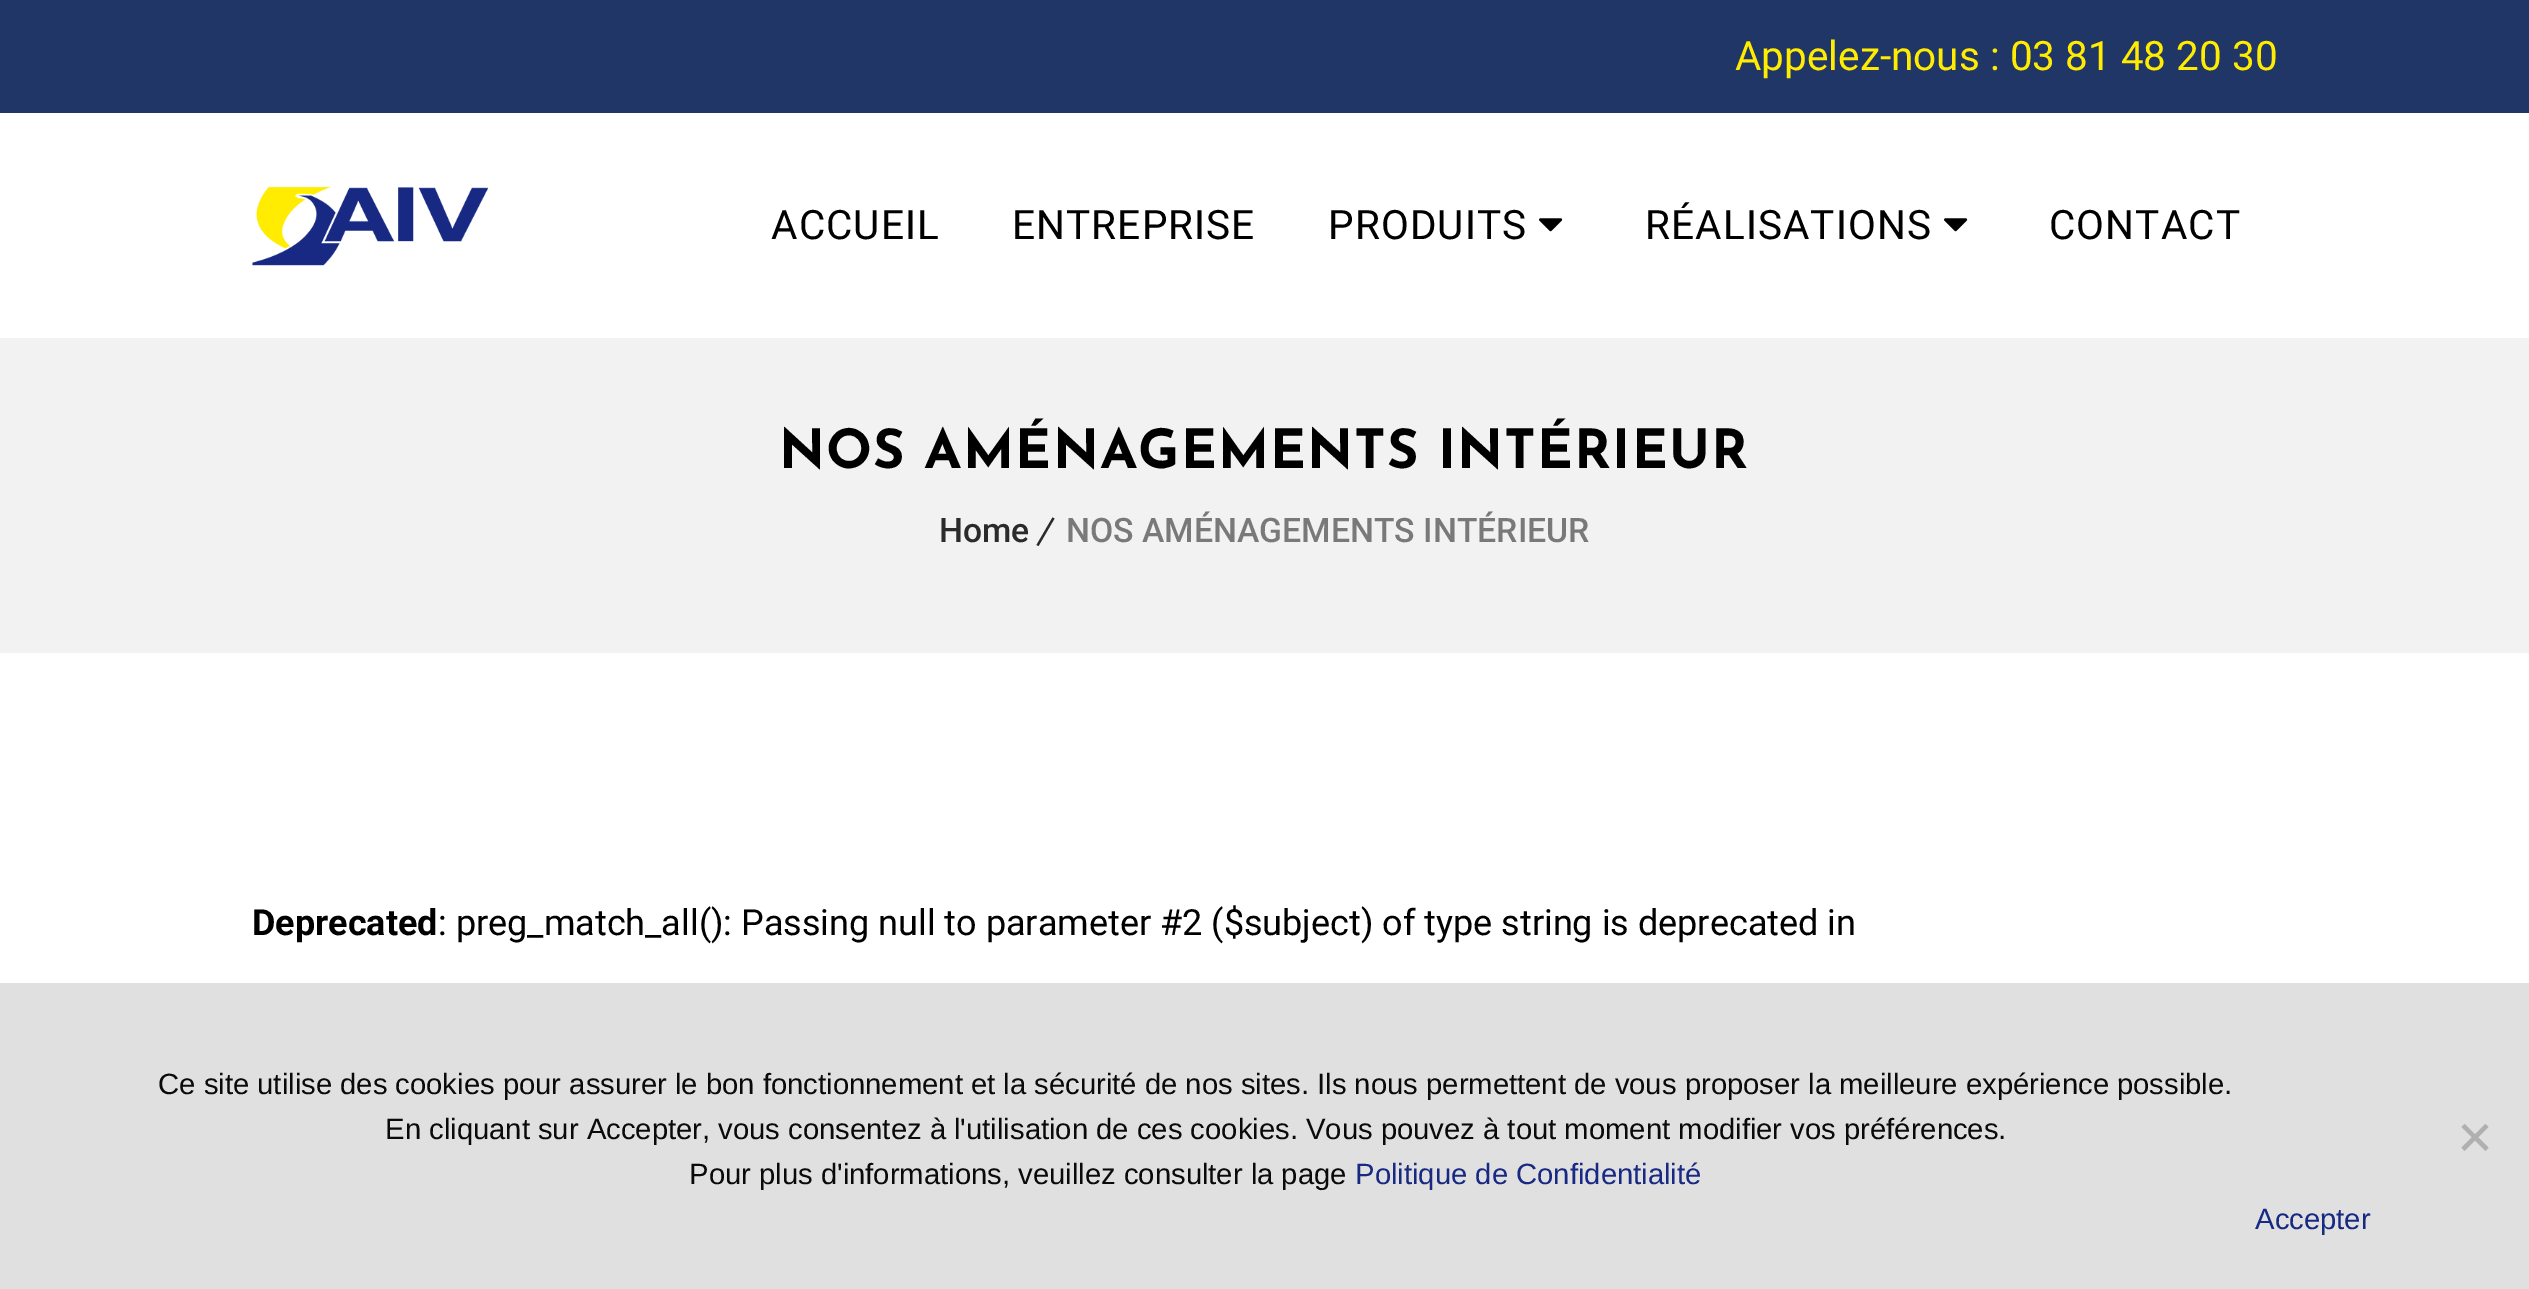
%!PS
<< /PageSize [2529 1289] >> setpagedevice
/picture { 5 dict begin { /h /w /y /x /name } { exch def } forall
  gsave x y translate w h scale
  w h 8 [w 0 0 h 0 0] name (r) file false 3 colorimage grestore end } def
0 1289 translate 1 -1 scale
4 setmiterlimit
1 setgray
0 0 2529 1289 rectfill
0.125 0.212 0.404 setrgbcolor
0 0 2529 113 rectfill
/Roboto-Regular [40.5 0 0 -40.5 0 0] selectfont
1 0.925 0 setrgbcolor
1735 70 moveto (Appelez-nous : 03 81 48 20 30) show
(img1.rgb) 252 186 237 80 picture
0 setgray
771 239 moveto 1.1 0 (ACCUEIL) ashow
1012 239 moveto 1.1 0 (ENTREPRISE) ashow
1328 239 moveto 1.1 0 (PRODUITS) ashow
(img2.rgb) 1539 218 24 14 picture
1645 239 moveto 1.1 0 (RÉALISATIONS) ashow
(img2.rgb) 1944 218 24 14 picture
2049 239 moveto 1.1 0 (CONTACT) ashow
0.949 setgray
0 338 2529 315 rectfill
/JosefinSans-Bold [54 0 0 -54 0 0] selectfont
0 setgray
779 468 moveto 1.1 0 (NOS AMÉNAGEMENTS INTÉRIEUR) ashow
/Roboto-Medium [33.75 0 0 -33.75 0 0] selectfont
0.169 setgray
939 542 moveto (Home) show
newpath 1052.5 517.5 moveto 1054.5 518.5 lineto 1038.5 546 lineto 1036.5 545 lineto closepath fill
0.475 setgray
1066 542 moveto (NOS AMÉNAGEMENTS INTÉRIEUR) show
/Roboto-Bold [36 0 0 -36 0 0] selectfont
0 setgray
252 935 moveto (Deprecated) show
/Roboto-Regular [36 0 0 -36 0 0] selectfont
438 935 moveto (: preg_match_all\(\): Passing null to parameter #2 \($subject\) of type string is deprecated in) show
0.878 setgray
0 983 2529 306 rectfill
/LiberationSans-Regular [29.25 0 0 -29.25 0 0] selectfont
0.039 setgray
158 1094 moveto (Ce site utilise des cookies pour assurer le bon fonctionnement et la sécurité de nos sites. Ils nous permettent de vous proposer la meilleure expérience possible.) show
385 1139 moveto (En cliquant sur Accepter, vous consentez à l'utilisation de ces cookies. Vous pouvez à tout moment modifier vos préférences.) show
689 1184 moveto (Pour plus d'informations, veuillez consulter la page) show
0.09 0.161 0.51 setrgbcolor
1355 1184 moveto (Politique de Confidentialité) show
0.69 setgray
newpath 2485.5 1124 moveto 2488.5 1127 lineto 2464.5 1151 lineto 2461.5 1147.5 lineto closepath fill
newpath 2461.5 1127 moveto 2464.5 1124 lineto 2488.5 1147.5 lineto 2485.5 1151 lineto closepath fill
0.09 0.161 0.51 setrgbcolor
2255 1229 moveto (Accepter) show
showpage
